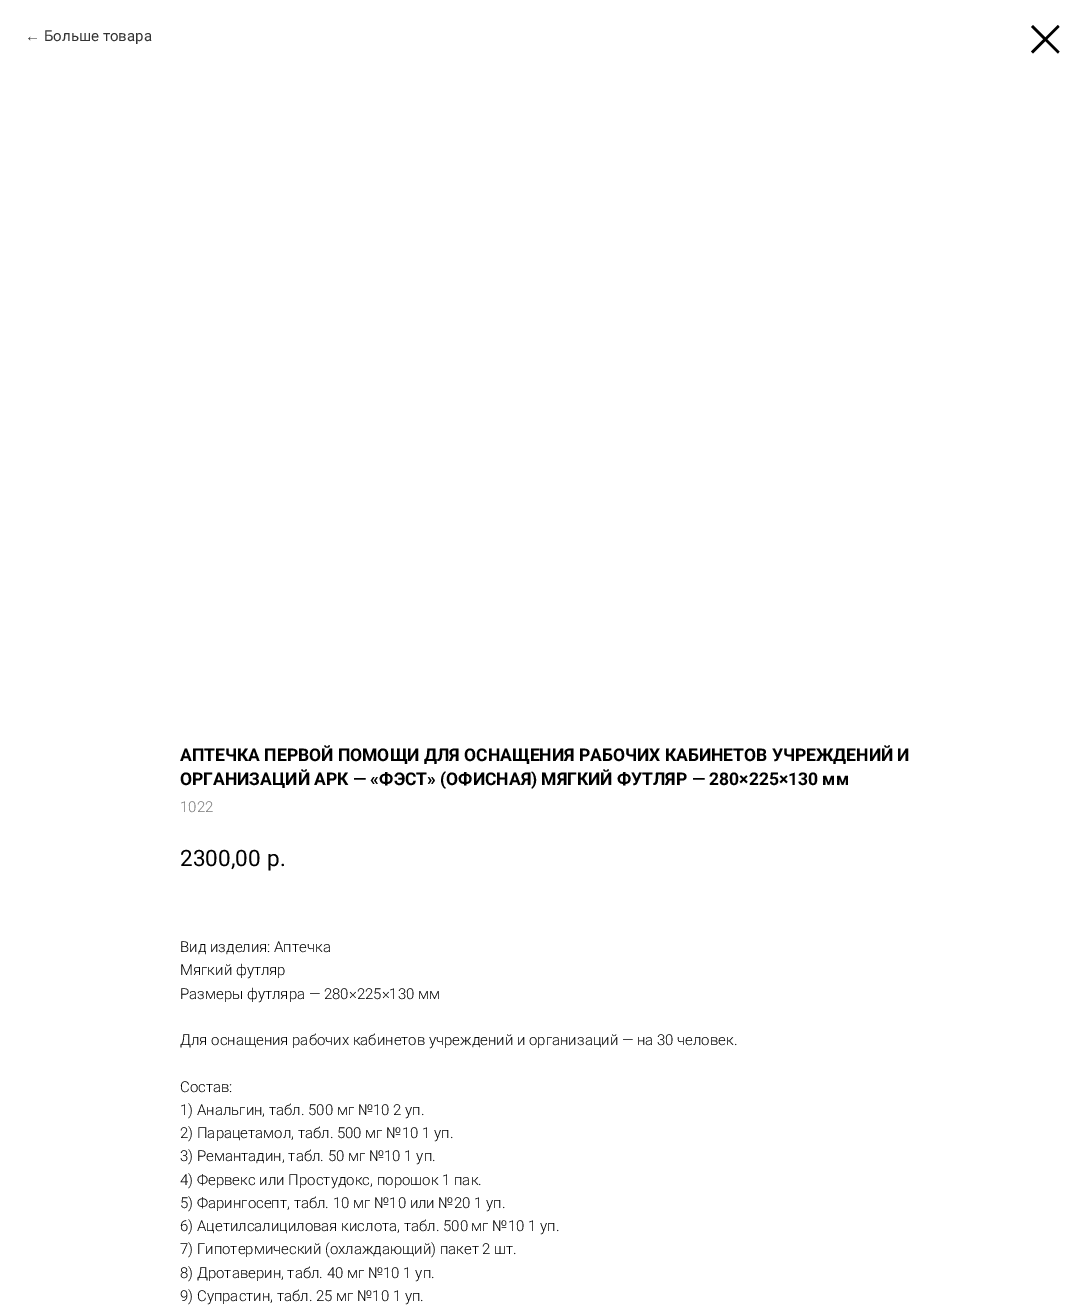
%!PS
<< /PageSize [1084 1314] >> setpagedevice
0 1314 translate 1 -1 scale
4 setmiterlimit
1 setgray
0 0 1084 1314 rectfill
/LiberationSans-Regular [15 0 0 -15 0 0] selectfont
0.2 setgray
25 41 moveto (←) show
/Roboto-Regular [15 0 0 -15 0 0] selectfont
44 41 moveto (Больше товара) show
0 setgray
newpath 1031 27 moveto 1033 25 lineto 1059.5 51.5 lineto 1058 53.5 lineto closepath eofill
newpath 1058 25 moveto 1059.5 27 lineto 1033 53.5 lineto 1031 51.5 lineto closepath eofill
/Roboto-Bold [17.5 0 0 -17.5 0 0] selectfont
180 761 moveto (АПТЕЧКА ПЕРВОЙ ПОМОЩИ ДЛЯ ОСНАЩЕНИЯ РАБОЧИХ КАБИНЕТОВ УЧРЕЖДЕНИЙ И) show
180 785 moveto (ОРГАНИЗАЦИЙ АРК — «ФЭСТ» \(ОФИСНАЯ\) МЯГКИЙ ФУТЛЯР — 280×225×130 мм) show
/Roboto-Light [15 0 0 -15 0 0] selectfont
0.467 setgray
180 812 moveto (1022) show
/Roboto-Regular [22.5 0 0 -22.5 0 0] selectfont
0 setgray
180 866 moveto (2300,00) show
267 866 moveto (р.) show
/Roboto-Light [15 0 0 -15 0 0] selectfont
180 952 moveto (Вид изделия: Аптечка) show
180 975 moveto (Мягкий футляр) show
180 999 moveto (Размеры футляра — 280×225×130 мм) show
180 1045 moveto (Для оснащения рабочих кабинетов учреждений и организаций — на 30 человек.) show
180 1092 moveto (Состав:) show
180 1115 moveto (1\) Анальгин, табл. 500 мг №10 2 уп.) show
180 1138 moveto (2\) Парацетамол, табл. 500 мг №10 1 уп.) show
180 1161 moveto (3\) Ремантадин, табл. 50 мг №10 1 уп.) show
180 1185 moveto (4\) Фервекс или Простудокс, порошок 1 пак.) show
180 1208 moveto (5\) Фарингосепт, табл. 10 мг №10 или №20 1 уп.) show
180 1231 moveto (6\) Ацетилсалициловая кислота, табл. 500 мг №10 1 уп.) show
180 1254 moveto (7\) Гипотермический \(охлаждающий\) пакет 2 шт.) show
180 1278 moveto (8\) Дротаверин, табл. 40 мг №10 1 уп.) show
180 1301 moveto (9\) Супрастин, табл. 25 мг №10 1 уп.) show
showpage
